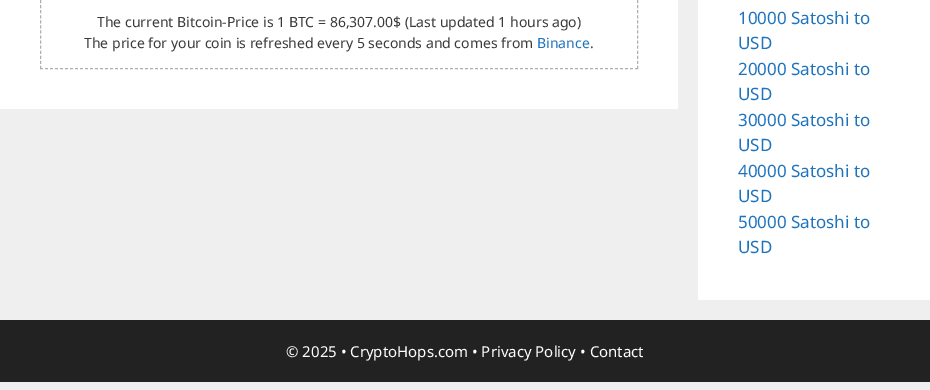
%!PS
<< /PageSize [930 390] >> setpagedevice
0 390 translate 1 -1 scale
4 setmiterlimit
0.937 setgray
0 0 930 390 rectfill
1 setgray
0 0 678 109 rectfill
0.686 setgray
[3 2.07] 0 setdash
newpath 637.5 -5 moveto 637.5 69 lineto stroke
[3 2] 0 setdash
newpath 40 68.5 moveto 638 68.5 lineto stroke
[3 2.07] 0 setdash
newpath 40.5 -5 moveto 40.5 69 lineto stroke
/NotoSans-Regular [14 0 0 -14 0 0] selectfont
0.227 setgray
97 27 moveto (The current Bitcoin-Price is 1 BTC = 86,307.00$ \(Last updated 1 hours ago\)) show
84 48 moveto (The price for your coin is refreshed every 5 seconds and comes from) show
0.118 0.451 0.745 setrgbcolor
537 48 moveto (Binance) show
0.227 setgray
590 48 moveto (.) show
1 setgray
698 0 232 300 rectfill
/NotoSans-Regular [17 0 0 -17 0 0] selectfont
0.118 0.451 0.745 setrgbcolor
738 24 moveto (10000 Satoshi to) show
738 49 moveto (USD) show
738 75 moveto (20000 Satoshi to) show
738 100 moveto (USD) show
738 126 moveto (30000 Satoshi to) show
738 151 moveto (USD) show
738 177 moveto (40000 Satoshi to) show
738 202 moveto (USD) show
738 228 moveto (50000 Satoshi to) show
738 253 moveto (USD) show
0.133 setgray
0 320 930 62 rectfill
/NotoSans-Regular [15 0 0 -15 0 0] selectfont
1 setgray
286 357 moveto (© 2025 • CryptoHops.com • Privacy Policy • Contact) show
showpage
